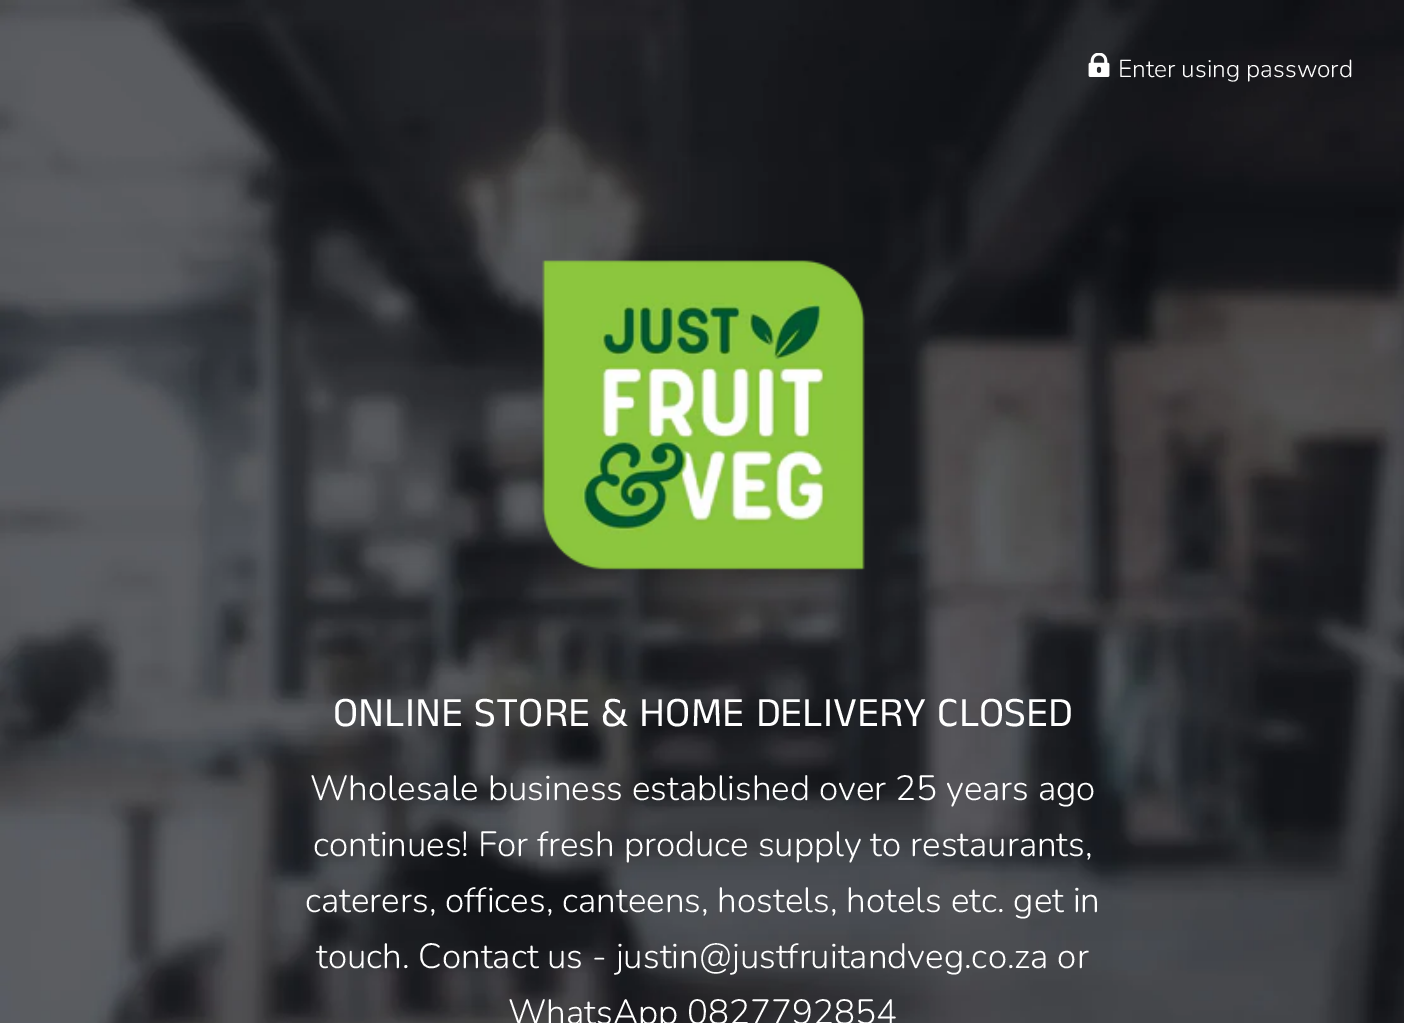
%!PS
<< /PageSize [1404 1023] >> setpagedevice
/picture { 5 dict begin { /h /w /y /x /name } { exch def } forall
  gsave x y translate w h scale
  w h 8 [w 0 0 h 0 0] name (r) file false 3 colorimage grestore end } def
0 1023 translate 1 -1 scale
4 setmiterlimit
1 setgray
0 0 1404 1023 rectfill
(img1.rgb) 0 0 1404 1023 picture
(img2.rgb) 1088 53 22 24 picture
/Nunito-Light [24.5 0 0 -24.5 0 0] selectfont
1118 77 moveto (Enter using password) show
(img3.rgb) 542 260 323 310 picture
/AnekTamil-Regular [42 0 0 -42 0 0] selectfont
333 726 moveto (ONLINE STORE & HOME DELIVERY CLOSED) show
/Nunito-Light [35 0 0 -35 0 0] selectfont
310 800 moveto (Wholesale business established over 25 years ago) show
313 856 moveto (continues! For fresh produce supply to restaurants,) show
305 912 moveto (caterers, offices, canteens, hostels, hotels etc. get in) show
316 968 moveto (touch. Contact us - justin@justfruitandveg.co.za or) show
508 1024 moveto (WhatsApp 0827792854) show
showpage
